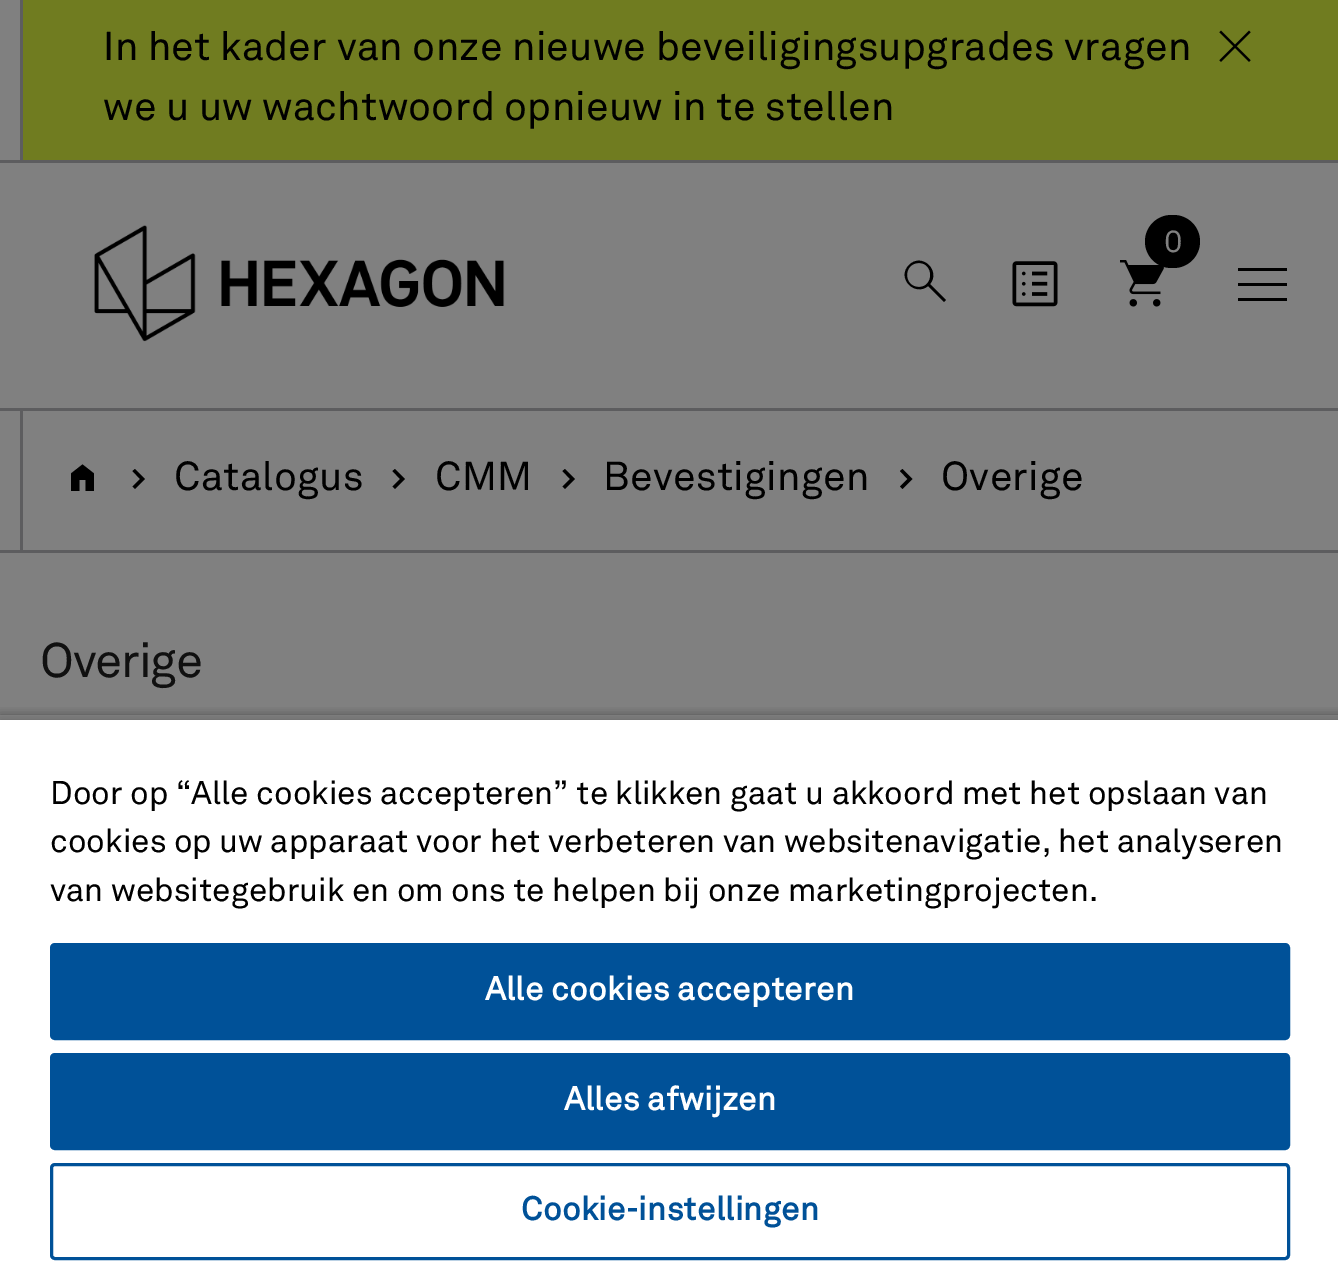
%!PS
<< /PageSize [1338 1271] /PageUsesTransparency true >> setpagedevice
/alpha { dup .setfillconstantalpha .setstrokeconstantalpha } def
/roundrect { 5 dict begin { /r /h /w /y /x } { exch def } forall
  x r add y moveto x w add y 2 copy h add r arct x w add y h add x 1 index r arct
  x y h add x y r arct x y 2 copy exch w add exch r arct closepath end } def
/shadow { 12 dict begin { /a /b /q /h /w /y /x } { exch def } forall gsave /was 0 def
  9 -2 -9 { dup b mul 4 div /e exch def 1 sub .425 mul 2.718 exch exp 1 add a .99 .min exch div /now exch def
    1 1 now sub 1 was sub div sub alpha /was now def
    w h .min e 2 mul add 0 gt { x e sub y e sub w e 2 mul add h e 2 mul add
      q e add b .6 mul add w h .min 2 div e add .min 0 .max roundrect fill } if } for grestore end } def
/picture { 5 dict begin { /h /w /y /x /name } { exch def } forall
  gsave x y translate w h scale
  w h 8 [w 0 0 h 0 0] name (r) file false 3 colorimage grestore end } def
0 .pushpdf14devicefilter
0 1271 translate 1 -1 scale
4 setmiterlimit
0.502 setgray
0 0 1338 1271 rectfill
0.365 0.365 0.373 setrgbcolor
0 160 1338 3 rectfill
20 0 3 160 rectfill
0.439 0.486 0.125 setrgbcolor
23 0 1315 160 rectfill
/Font-Regular [40 0 0 -40 0 0] selectfont
0 setgray
103 60 moveto 0.2 0 (In het kader van onze nieuwe beveiligingsupgrades vragen) ashow
(img1.rgb) 1219 30 32 32 picture
103 120 moveto 0.2 0 (we u uw wachtwoord opnieuw in te stellen) ashow
0.365 0.365 0.373 setrgbcolor
20 410 3 140 rectfill
0 408 1338 3 rectfill
(img2.rgb) 94 225 411 117 picture
(img3.rgb) 1120 260 44 47 picture
0 setgray
1145 215 55 53 26.5 roundrect fill
/Font-Regular [30 0 0 -30 0 0] selectfont
0.502 setgray
1164 252 moveto 0.2 0 (0) ashow
(img4.rgb) 1012 261 46 46 picture
0 setgray
newpath 944 302 moveto 928 286 lineto 915 297 896 278 909 265 curveto 922 252 941 271 930 284 curveto 946 300 lineto closepath 919 287 moveto 934 287 934 263 919 263 curveto 903 263 903 287 919 287 curveto closepath fill
newpath 1238 301 moveto 1238 298 lineto 1287 298 lineto 1287 301 lineto closepath 1238 286 moveto 1238 283 lineto 1287 283 lineto 1287 286 lineto closepath 1238 271 moveto 1238 268 lineto 1287 268 lineto 1287 271 lineto closepath fill
0.365 0.365 0.373 setrgbcolor
0 550 1338 3 rectfill
0 setgray
newpath 71 491 moveto 71 473.5 lineto 82.5 464.5 lineto 94 473.5 lineto 94 491 lineto 85.5 491 lineto 85.5 480 lineto 79.5 480 lineto 79.5 491 lineto closepath fill
newpath 132.5 486.5 moveto 140 479 lineto 132.5 471 lineto 135 469 lineto 145 479 lineto 135 489 lineto closepath fill
/Font-Regular [40 0 0 -40 0 0] selectfont
174 490 moveto 0.2 0 (Catalogus) ashow
newpath 392.5 486.5 moveto 400 479 lineto 392.5 471 lineto 395 469 lineto 405 479 lineto 395 489 lineto closepath fill
435 490 moveto 0.2 0 (CMM) ashow
newpath 562.5 486.5 moveto 570 479 lineto 562.5 471 lineto 565 469 lineto 575 479 lineto 565 489 lineto closepath fill
603 490 moveto 0.2 0 (Bevestigingen) ashow
newpath 900 486.5 moveto 907.5 479 lineto 900 471 lineto 902.5 469 lineto 912.5 479 lineto 902.5 489 lineto closepath fill
941 490 moveto 0.2 0 (Overige) ashow
/Font-Regular [48 0 0 -48 0 0] selectfont
0.063 setgray
40 677 moveto -1.25 0 (Overige) ashow
gsave
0 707 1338 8 rectclip
0 setgray
0 715 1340 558 0 5 0.35 shadow
grestore
gsave
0 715 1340 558 rectclip
0 setgray
0 720 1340 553 0 5 0.2 shadow
grestore
1 setgray
0 720 1338 551 rectfill
/Font-Regular [32.5 0 0 -32.5 0 0] selectfont
0 setgray
50 804 moveto (Door op “Alle cookies accepteren” te klikken gaat u akkoord met het opslaan van) show
50 852 moveto (cookies op uw apparaat voor het verbeteren van websitenavigatie, het analyseren) show
50 901 moveto (van websitegebruik en om ons te helpen bij onze marketingprojecten.) show
0 0.318 0.596 setrgbcolor
51.5 944.5 1237 94 3.5 roundrect gsave fill grestore
3 setlinewidth
stroke
/Font-Bold [32.5 0 0 -32.5 0 0] selectfont
1 setgray
485 1000 moveto 0.3 0 (Alle cookies accepteren) ashow
0 0.318 0.596 setrgbcolor
51.5 1054.5 1237 94 3.5 roundrect gsave fill grestore
stroke
1 setgray
564 1110 moveto 0.3 0 (Alles afwijzen) ashow
0 0.318 0.596 setrgbcolor
51.5 1164.5 1237 94 3.5 roundrect stroke
521 1220 moveto 0.3 0 (Cookie-instellingen) ashow
.poppdf14devicefilter showpage
